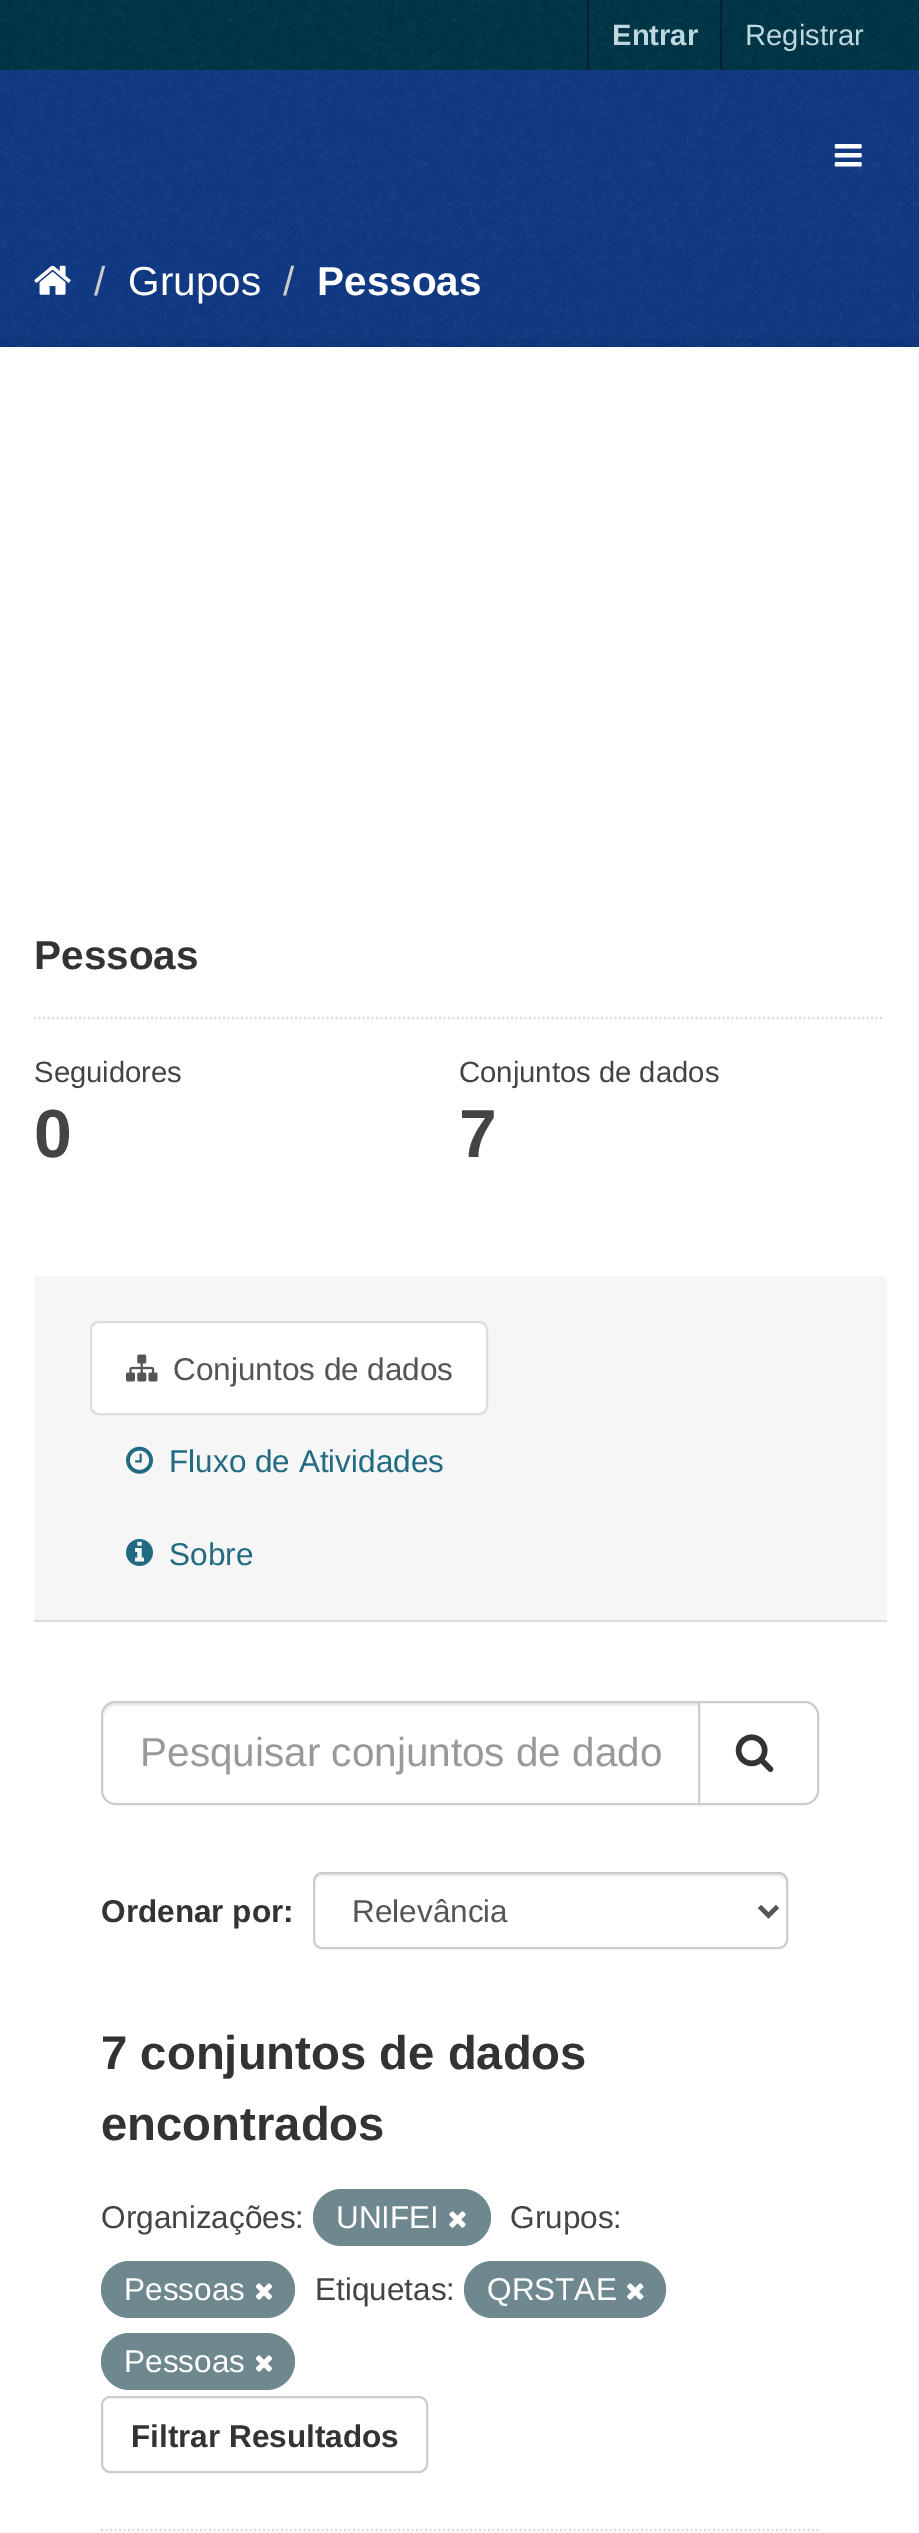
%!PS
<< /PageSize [919 2533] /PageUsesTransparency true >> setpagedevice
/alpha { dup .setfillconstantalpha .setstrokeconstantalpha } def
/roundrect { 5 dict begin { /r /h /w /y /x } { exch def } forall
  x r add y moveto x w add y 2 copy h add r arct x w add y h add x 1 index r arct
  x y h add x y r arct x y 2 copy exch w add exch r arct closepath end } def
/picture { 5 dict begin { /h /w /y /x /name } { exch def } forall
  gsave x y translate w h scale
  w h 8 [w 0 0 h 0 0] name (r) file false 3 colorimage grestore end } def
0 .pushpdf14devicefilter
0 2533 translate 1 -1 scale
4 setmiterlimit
0.063 0.227 0.518 setrgbcolor
0 0 919 2533 rectfill
(img1.rgb) 0 243 919 104 picture
0 0.212 0.278 setrgbcolor
0 0 919 70 rectfill
(img2.rgb) 0 0 919 70 picture
0 0.137 0.18 setrgbcolor
587 0 2 70 rectfill
/LiberationSans-Bold [29.25 0 0 -29.25 0 0] selectfont
0.749 0.843 0.871 setrgbcolor
612 45 moveto (Entrar) show
0 0.137 0.18 setrgbcolor
720 0 2 70 rectfill
/LiberationSans-Regular [29.25 0 0 -29.25 0 0] selectfont
0.749 0.843 0.871 setrgbcolor
745 45 moveto (Registrar) show
(img3.rgb) 0 70 919 173 picture
(img4.rgb) 834 144 28 23 picture
(img5.rgb) 34 265 37 30 picture
/LiberationSans-Regular [40.5 0 0 -40.5 0 0] selectfont
0.8 setgray
94 295 moveto (/) show
1 setgray
128 295 moveto (Grupos) show
0.8 setgray
283 295 moveto (/) show
/LiberationSans-Bold [40.5 0 0 -40.5 0 0] selectfont
1 setgray
317 295 moveto (Pessoas) show
0.05 alpha
0 setgray
9 setlinewidth
-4.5 342.5 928 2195 rectstroke
1 alpha
1 setgray
0 347 919 2186 rectfill
0.2 setgray
34 969 moveto (Pessoas) show
0.867 setgray
2.2 setlinewidth
[2.25 2.25] 0 setdash
newpath 34 1018 moveto 884 1018 lineto stroke
/LiberationSans-Regular [29.25 0 0 -29.25 0 0] selectfont
0.267 setgray
34 1082 moveto (Seguidores) show
/LiberationSans-Bold [68 0 0 -68 0 0] selectfont
34 1157 moveto (0) show
/LiberationSans-Regular [29.25 0 0 -29.25 0 0] selectfont
459 1082 moveto (Conjuntos de dados) show
/LiberationSans-Bold [68 0 0 -68 0 0] selectfont
459 1157 moveto (7) show
0.965 setgray
newpath 34 1276 moveto 880 1276 lineto 884 1276 887 1279 887 1283 curveto 887 1622 lineto 34 1622 lineto closepath fill
0.867 setgray
34 1620 853 2 rectfill
1 setgray
91 1322 396 92 8 roundrect gsave fill grestore
0.867 setgray
2 setlinewidth
[] 0 setdash
stroke
(img6.rgb) 126 1354 32 28 picture
/LiberationSans-Regular [31.5 0 0 -31.5 0 0] selectfont
0.333 setgray
173 1380 moveto (Conjuntos de dados) show
(img7.rgb) 126 1446 27 28 picture
0.125 0.42 0.51 setrgbcolor
169 1472 moveto (Fluxo de Atividades) show
(img8.rgb) 126 1539 27 27 picture
169 1565 moveto (Sobre) show
0.867 setgray
2.2 setlinewidth
[2.25 2.25] 0 setdash
newpath 101 2530 moveto 819 2530 lineto stroke
0.925 setgray
newpath 115 1706 moveto 698 1706 lineto 698 1703 lineto 115 1703 lineto 109 1703 104 1708 104 1714 curveto 104 1717 lineto 104 1711 109 1706 115 1706 curveto closepath fill
0.8 setgray
2 setlinewidth
[] 0 setdash
newpath 115 1702 moveto 699 1702 lineto 699 1804 lineto 115 1804 lineto 108 1804 102 1798 102 1791 curveto 102 1715 lineto 102 1708 108 1702 115 1702 curveto closepath stroke
/LiberationSans-Regular [40.5 0 0 -40.5 0 0] selectfont
0.6 setgray
140 1766 moveto (Pesquisar conjuntos de dado) show
1 setgray
newpath 699 1702 moveto 805 1702 lineto 812 1702 818 1708 818 1715 curveto 818 1791 lineto 818 1798 812 1804 805 1804 curveto 699 1804 lineto closepath gsave fill grestore
0.8 setgray
stroke
(img9.rgb) 735 1734 39 38 picture
/LiberationSans-Bold [31.5 0 0 -31.5 0 0] selectfont
0.2 setgray
101 1922 moveto (Ordenar por:) show
0.925 setgray
newpath 322 1876 moveto 778 1876 lineto 782 1876 785 1880 785 1883 curveto 785 1881 lineto 785 1877 782 1874 778 1874 curveto 322 1874 lineto 318 1874 315 1877 315 1881 curveto 315 1883 lineto 315 1880 318 1876 322 1876 curveto closepath fill
0.8 setgray
314 1873 473 75 8 roundrect stroke
0.333 setgray
4.5 setlinewidth
newpath 759.5 1906.5 moveto 768.5 1915.5 lineto 777.5 1906.5 lineto stroke
/LiberationSans-Regular [31.5 0 0 -31.5 0 0] selectfont
352 1922 moveto (Relevância) show
/LiberationSans-Bold [47.25 0 0 -47.25 0 0] selectfont
0.2 setgray
101 2069 moveto (7 conjuntos de dados) show
101 2140 moveto (encontrados) show
/LiberationSans-Regular [31.5 0 0 -31.5 0 0] selectfont
0.267 setgray
101 2228 moveto (Organizações:) show
0.435 0.533 0.565 setrgbcolor
313 2189 178 57 28.5 roundrect fill
1 setgray
336 2228 moveto (UNIFEI) show
(img10.rgb) 449 2211 17 17 picture
0.267 setgray
510 2228 moveto (Grupos:) show
0.435 0.533 0.565 setrgbcolor
101 2261 194 57 28.5 roundrect fill
1 setgray
124 2300 moveto (Pessoas) show
(img11.rgb) 255 2283 18 17 picture
0.267 setgray
315 2300 moveto (Etiquetas:) show
0.435 0.533 0.565 setrgbcolor
464 2261 202 57 28.5 roundrect fill
1 setgray
487 2300 moveto (QRSTAE) show
(img12.rgb) 627 2283 17 17 picture
0.435 0.533 0.565 setrgbcolor
101 2333 194 57 28.5 roundrect fill
1 setgray
124 2372 moveto (Pessoas) show
(img11.rgb) 255 2355 18 17 picture
0.8 setgray
2 setlinewidth
102 2397 325 75 8 roundrect stroke
/LiberationSans-Bold [31.5 0 0 -31.5 0 0] selectfont
0.2 setgray
131 2447 moveto (Filtrar Resultados) show
.poppdf14devicefilter showpage
